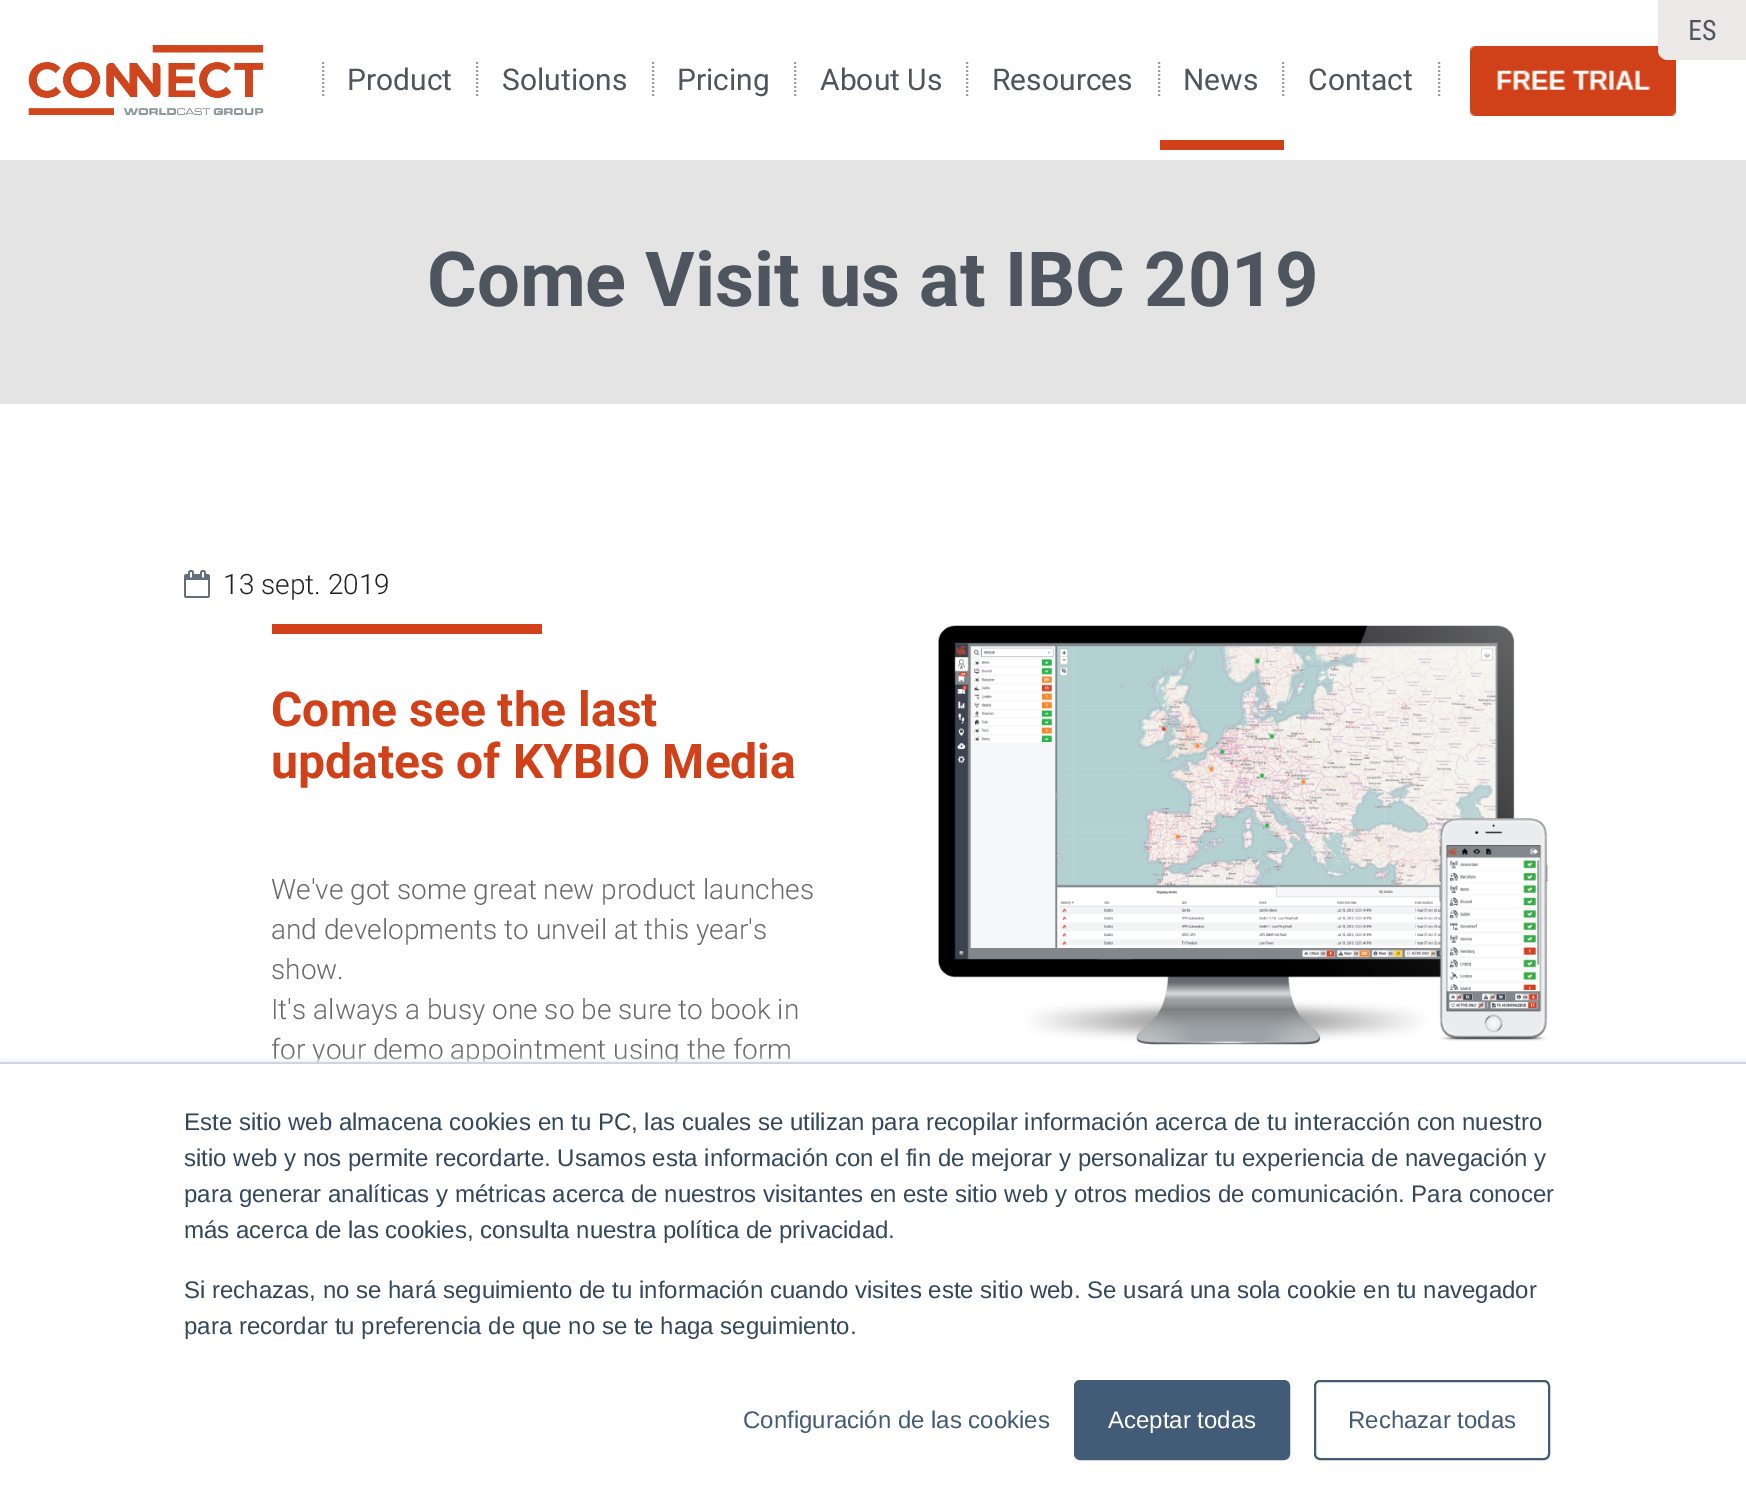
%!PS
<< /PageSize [1746 1512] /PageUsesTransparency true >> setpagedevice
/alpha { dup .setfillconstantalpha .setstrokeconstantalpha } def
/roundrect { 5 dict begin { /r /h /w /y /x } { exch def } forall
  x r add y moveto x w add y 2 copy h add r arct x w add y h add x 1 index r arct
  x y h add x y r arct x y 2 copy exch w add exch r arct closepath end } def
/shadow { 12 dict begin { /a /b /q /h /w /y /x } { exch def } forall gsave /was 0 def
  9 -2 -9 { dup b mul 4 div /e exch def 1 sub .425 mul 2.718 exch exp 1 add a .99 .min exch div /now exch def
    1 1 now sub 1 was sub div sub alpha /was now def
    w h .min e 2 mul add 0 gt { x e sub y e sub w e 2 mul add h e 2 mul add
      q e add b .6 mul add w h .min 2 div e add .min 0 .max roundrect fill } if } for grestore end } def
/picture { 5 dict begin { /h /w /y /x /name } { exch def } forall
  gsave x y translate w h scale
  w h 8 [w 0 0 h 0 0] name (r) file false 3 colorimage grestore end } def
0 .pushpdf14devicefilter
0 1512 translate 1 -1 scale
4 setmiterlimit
1 setgray
0 0 1746 1512 rectfill
(img2.rgb) 1470 46 206 70 picture
0.929 0.91 0.91 setrgbcolor
newpath 1658 0 moveto 1746 0 lineto 1746 60 lineto 1668 60 lineto 1662.5 60 1658 55.5 1658 50 curveto closepath fill
/RobotoCondensed-Regular [28 0 0 -28 0 0] selectfont
0.306 0.333 0.369 setrgbcolor
1688 40 moveto (ES) show
(img1.rgb) 28 45 236 71 picture
/Roboto-Regular [30 0 0 -30 0 0] selectfont
347 90 moveto (Product) show
0.616 setgray
2 setlinewidth
[2 2] 0 setdash
newpath 477 62 moveto 477 98 lineto stroke
newpath 323 62 moveto 323 98 lineto stroke
0.306 0.333 0.369 setrgbcolor
502 90 moveto (Solutions) show
0.616 setgray
newpath 653 62 moveto 653 98 lineto stroke
0.306 0.333 0.369 setrgbcolor
677 90 moveto (Pricing) show
0.616 setgray
newpath 795 62 moveto 795 98 lineto stroke
0.306 0.333 0.369 setrgbcolor
820 90 moveto (About Us) show
0.616 setgray
newpath 967 62 moveto 967 98 lineto stroke
0.306 0.333 0.369 setrgbcolor
992 90 moveto (Resources) show
0.616 setgray
newpath 1159 62 moveto 1159 98 lineto stroke
0.816 0.255 0.098 setrgbcolor
1160 140 124 10 rectfill
0.306 0.333 0.369 setrgbcolor
1183 90 moveto (News) show
0.616 setgray
newpath 1283 62 moveto 1283 98 lineto stroke
0.306 0.333 0.369 setrgbcolor
1308 90 moveto (Contact) show
0.616 setgray
newpath 1439 62 moveto 1439 98 lineto stroke
0.894 setgray
0 160 1746 244 rectfill
/Roboto-Bold [76 0 0 -76 0 0] selectfont
0.306 0.333 0.369 setrgbcolor
427 306 moveto (Come Visit us at IBC 2019) show
(img3.rgb) 184 570 26 28 picture
/Roboto-Light [28 0 0 -28 0 0] selectfont
0.133 setgray
223 594 moveto (13 sept. 2019) show
0.816 0.255 0.098 setrgbcolor
272 624 270 10 rectfill
/Roboto-Bold [48 0 0 -48 0 0] selectfont
271 726 moveto (Come see the last) show
271 778 moveto (updates of KYBIO Media) show
/Roboto-Light [28 0 0 -28 0 0] selectfont
0.412 setgray
271 899 moveto (We've got some great new product launches) show
271 939 moveto (and developments to unveil at this year's) show
271 979 moveto (show.) show
271 1019 moveto (It's always a busy one so be sure to book in) show
271 1059 moveto (for your demo appointment using the form) show
(img4.rgb) 938 625 610 420 picture
0.918 0.941 0.965 setrgbcolor
0 1060 1746 450 0 3 1 shadow
1 setgray
0 1064 1746 448 rectfill
0.796 0.839 0.886 setrgbcolor
0 1062 1746 2 rectfill
/LiberationSans-Regular [24 0 0 -24 0 0] selectfont
0.2 0.278 0.357 setrgbcolor
184 1130 moveto (Este sitio web almacena cookies en tu PC, las cuales se utilizan para recopilar información acerca de tu interacción con nuestro) show
184 1166 moveto (sitio web y nos permite recordarte. Usamos esta información con el fin de mejorar y personalizar tu experiencia de navegación y) show
184 1202 moveto (para generar analíticas y métricas acerca de nuestros visitantes en este sitio web y otros medios de comunicación. Para conocer) show
184 1238 moveto (más acerca de las cookies, consulta nuestra política de privacidad.) show
184 1298 moveto (Si rechazas, no se hará seguimiento de tu información cuando visites este sitio web. Se usará una sola cookie en tu navegador) show
184 1334 moveto (para recordar tu preferencia de que no se te haga seguimiento.) show
0.259 0.357 0.463 setrgbcolor
743 1428 moveto (Configuración de las cookies) show
1075 1381 214 78 5 roundrect gsave fill grestore
[] 0 setdash
stroke
1 setgray
1108 1428 moveto (Aceptar todas) show
0.259 0.357 0.463 setrgbcolor
1315 1381 234 78 5 roundrect stroke
1348 1428 moveto (Rechazar todas) show
.poppdf14devicefilter showpage
